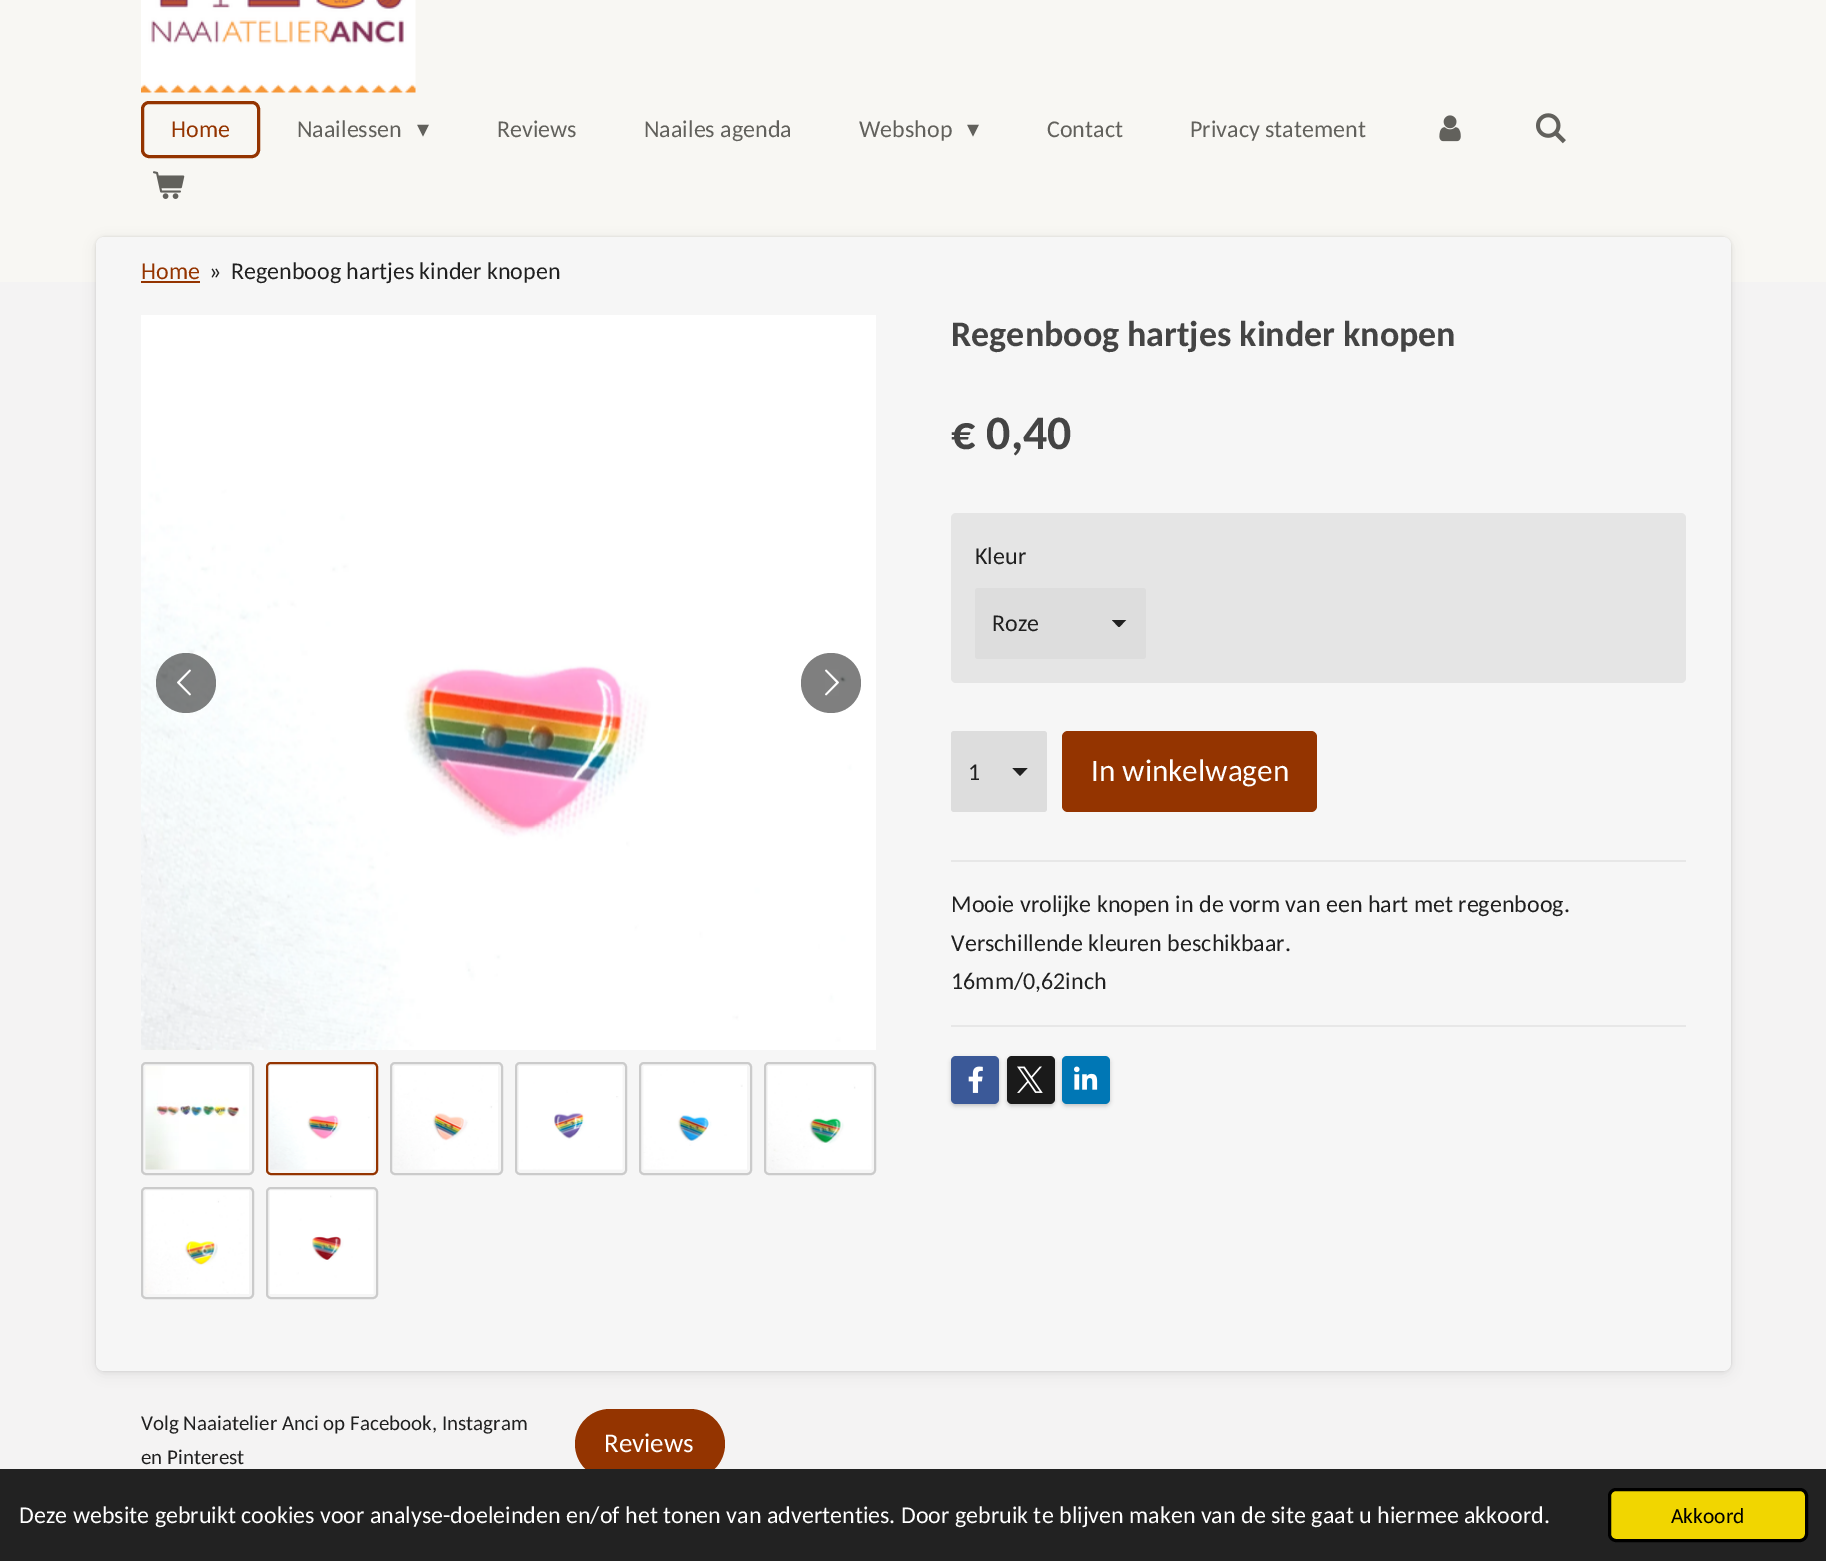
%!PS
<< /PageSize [1826 1561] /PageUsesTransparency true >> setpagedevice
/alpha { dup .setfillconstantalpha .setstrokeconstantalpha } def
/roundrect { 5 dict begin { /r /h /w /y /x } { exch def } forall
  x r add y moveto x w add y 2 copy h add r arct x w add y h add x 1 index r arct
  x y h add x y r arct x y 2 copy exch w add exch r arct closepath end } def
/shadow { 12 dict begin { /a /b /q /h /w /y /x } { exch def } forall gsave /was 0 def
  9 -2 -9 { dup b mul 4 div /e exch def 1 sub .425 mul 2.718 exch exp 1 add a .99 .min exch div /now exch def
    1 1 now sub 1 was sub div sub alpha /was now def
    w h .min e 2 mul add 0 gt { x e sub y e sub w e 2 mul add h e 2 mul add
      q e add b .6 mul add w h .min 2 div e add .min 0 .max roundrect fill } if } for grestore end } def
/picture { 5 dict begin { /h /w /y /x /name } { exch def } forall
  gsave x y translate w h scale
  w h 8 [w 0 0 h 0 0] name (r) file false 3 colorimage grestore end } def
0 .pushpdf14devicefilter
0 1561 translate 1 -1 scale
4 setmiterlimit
0.957 0.953 0.953 setrgbcolor
0 0 1826 1561 rectfill
0.973 0.969 0.953 setrgbcolor
0 0 1826 282 rectfill
(img1.rgb) 141 0 275 93 picture
0.58 0.204 0 setrgbcolor
3 setlinewidth
142.5 102.5 116 54 6.5 roundrect stroke
/Carlito-Regular [24 0 0 -24 0 0] selectfont
171 137 moveto (Home) show
0.384 0.38 0.361 setrgbcolor
297 137 moveto (Naailessen) show
/DejaVuSans-Regular [24 0 0 -24 0 0] selectfont
417 137 moveto (▾) show
/Carlito-Regular [24 0 0 -24 0 0] selectfont
497 137 moveto (Reviews) show
644 137 moveto (Naailes agenda) show
859 137 moveto (Webshop) show
/DejaVuSans-Regular [24 0 0 -24 0 0] selectfont
967 137 moveto (▾) show
/Carlito-Regular [24 0 0 -24 0 0] selectfont
1047 137 moveto (Contact) show
1190 137 moveto (Privacy statement) show
(img2.rgb) 1439 115 22 27 picture
(img3.rgb) 1536 113 30 31 picture
(img4.rgb) 153 171 32 28 picture
0 setgray
96 237 1635 1134 8 1.5 0.1 shadow
96 240 1635 1134 8 6 0.07 shadow
0.965 setgray
96 237 1635 1134 8 roundrect fill
0.58 0.204 0 setrgbcolor
141 279 moveto (Home) show
141 281 59 2 rectfill
0.125 setgray
209 279 moveto (») show
231 279 moveto (Regenboog hartjes kinder knopen) show
(img5.rgb) 141 315 735 735 picture
0.5 alpha
0 setgray
newpath 186 683 30 0 360 arc closepath fill
1 alpha
(img6.rgb) 177 669 14 27 picture
0.5 alpha
newpath 831 683 30 0 360 arc closepath fill
1 alpha
(img7.rgb) 825 669 14 27 picture
0.796 setgray
2 setlinewidth
142 1063 111 111 4 roundrect stroke
(img8.rgb) 145 1066 104 104 picture
0.58 0.204 0 setrgbcolor
267 1063 110 111 4 roundrect stroke
(img9.rgb) 270 1066 104 104 picture
0.796 setgray
391 1063 111 111 4 roundrect stroke
(img10.rgb) 394 1066 104 104 picture
516 1063 110 111 4 roundrect stroke
(img11.rgb) 519 1066 104 104 picture
640 1063 111 111 4 roundrect stroke
(img12.rgb) 643 1066 104 104 picture
765 1063 110 111 4 roundrect stroke
(img13.rgb) 768 1066 104 104 picture
142 1188 111 110 4 roundrect stroke
(img14.rgb) 145 1190 104 104 picture
267 1188 110 110 4 roundrect stroke
(img15.rgb) 270 1190 104 104 picture
/Carlito-Bold [36 0 0 -36 0 0] selectfont
0.267 setgray
951 346 moveto (Regenboog hartjes kinder knopen) show
/Carlito-Bold [48 0 0 -48 0 0] selectfont
951 449 moveto (€ 0,40) show
0.898 setgray
951 513 735 170 5 roundrect fill
/Carlito-Regular [24 0 0 -24 0 0] selectfont
0.125 setgray
975 564 moveto (Kleur) show
0.867 setgray
975 588 171 71 3 roundrect fill
gsave
1112 620 16 7 rectclip
0.125 setgray
newpath 1119 627.5 moveto 1111.5 619.5 lineto 1126.5 619.5 lineto closepath fill
grestore
0.125 setgray
992 631 moveto (Roze) show
0.867 setgray
951 731 96 81 3 roundrect fill
0.125 setgray
newpath 1020 776 moveto 1012.5 768 lineto 1027.5 768 lineto closepath fill
968 780 moveto (1) show
0.58 0.204 0 setrgbcolor
1062 731 255 81 6 roundrect fill
/Carlito-Regular [31.25 0 0 -31.25 0 0] selectfont
1 setgray
1091 781 moveto (In winkelwagen) show
0.906 setgray
951 860 735 2 rectfill
/Carlito-Regular [24 0 0 -24 0 0] selectfont
0.125 setgray
951 912 moveto (Mooie vrolijke knopen in de vorm van een hart met regenboog.) show
951 951 moveto (Verschillende kleuren beschikbaar.) show
951 989 moveto (16mm/0,62inch) show
0.906 setgray
951 1025 735 2 rectfill
0 setgray
951 1058 48 48 5 2 0.2 shadow
0.231 0.349 0.596 setrgbcolor
951 1056 48 48 5 roundrect fill
(img16.rgb) 968 1066 15 27 picture
0 setgray
1007 1058 48 48 5 2 0.2 shadow
0.102 setgray
1007 1056 48 48 5 roundrect fill
(img17.rgb) 1017 1066 26 27 picture
0 setgray
1062 1058 48 48 5 2 0.2 shadow
0 0.467 0.71 setrgbcolor
1062 1056 48 48 5 roundrect fill
(img18.rgb) 1074 1066 24 24 picture
/Carlito-Regular [21 0 0 -21 0 0] selectfont
0.125 setgray
141 1430 moveto (Volg Naaiatelier Anci op Facebook, Instagram) show
141 1464 moveto (en Pinterest) show
0.58 0.204 0 setrgbcolor
575 1409 150 70 35 roundrect fill
/Carlito-Regular [27 0 0 -27 0 0] selectfont
1 setgray
604 1452 moveto (Reviews) show
0.133 setgray
0 1469 1826 92 rectfill
/Carlito-Regular [24 0 0 -24 0 0] selectfont
1 setgray
19 1523 moveto (Deze website gebruikt cookies voor analyse-doeleinden en/of het tonen van advertenties. Door gebruik te blijven maken van de site gaat u hiermee akkoord.) show
0.945 0.839 0 setrgbcolor
1609.5 1489.5 197 51 6.5 roundrect gsave fill grestore
0 setgray
3 setlinewidth
stroke
/Carlito-Regular [21.5 0 0 -21.5 0 0] selectfont
1671 1523 moveto (Akkoord) show
.poppdf14devicefilter showpage
